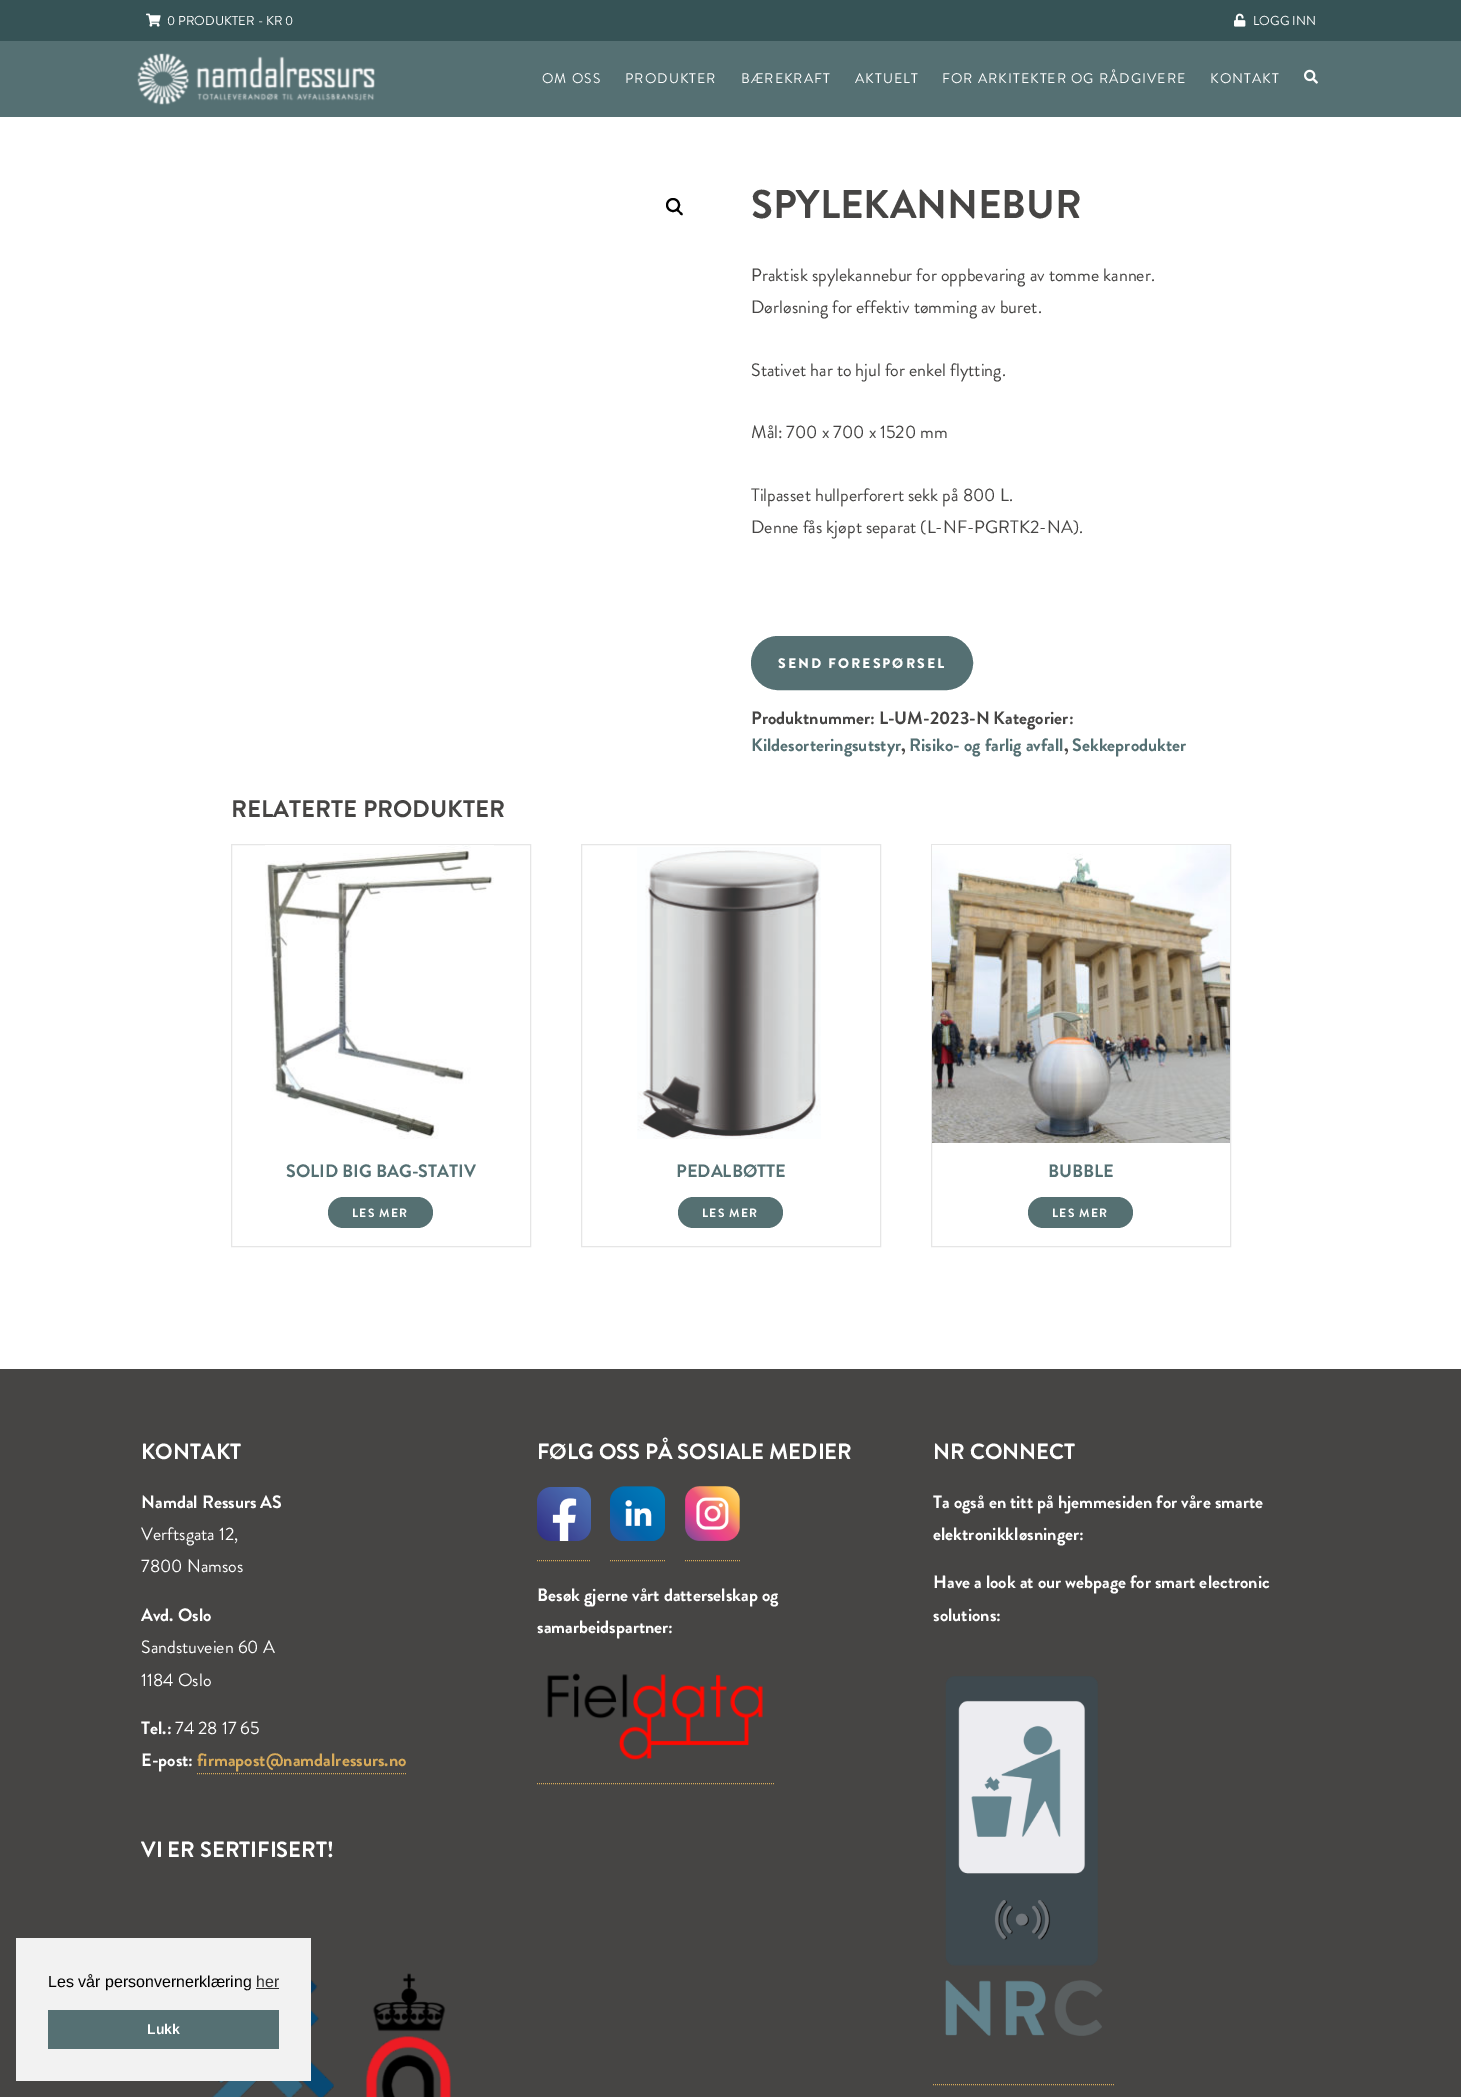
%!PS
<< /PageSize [1461 2097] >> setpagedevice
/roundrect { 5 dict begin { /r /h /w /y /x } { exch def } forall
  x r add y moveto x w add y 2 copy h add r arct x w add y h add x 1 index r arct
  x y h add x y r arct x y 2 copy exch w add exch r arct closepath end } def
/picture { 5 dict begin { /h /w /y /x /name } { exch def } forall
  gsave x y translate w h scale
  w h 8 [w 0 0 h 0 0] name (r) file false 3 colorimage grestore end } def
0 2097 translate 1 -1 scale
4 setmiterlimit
1 setgray
0 0 1461 2097 rectfill
0.333 0.439 0.451 setrgbcolor
0 41 1461 76 rectfill
0.212 0.325 0.337 setrgbcolor
0 0 1461 41 rectfill
(img1.rgb) 146 13 15 14 picture
/BrandonGrotesque-Regular [13 0 0 -13 0 0] selectfont
1 setgray
167 25 moveto (0 PRODUKTER - KR 0) show
(img2.rgb) 1234 13 12 14 picture
1253 25 moveto (LOGG INN) show
(img3.rgb) 137 53 238 52 picture
/BrandonGrotesque-Regular [14 0 0 -14 0 0] selectfont
542 83 moveto 1 0 (OM OSS) ashow
625 83 moveto 1 0 (PRODUKTER) ashow
741 83 moveto 1 0 (BÆREKRAFT) ashow
855 83 moveto 1 0 (AKTUELT) ashow
942 83 moveto 1 0 (FOR ARKITEKTER OG RÅDGIVERE) ashow
1210 83 moveto 1 0 (KONTAKT) ashow
(img4.rgb) 1304 69 14 15 picture
0 setgray
2 setlinewidth
newpath 673 205 6 0 360 arc closepath stroke
newpath 676.5 209 moveto 678 208 679.5 210.5 680 211.5 curveto 681 212 683.5 213.5 682.5 215 curveto 681 216 679.5 213.5 679 212.5 curveto 678 212 675.5 210.5 676.5 209 curveto closepath fill
/BrandonGrotesque-Bold [40 0 0 -40 0 0] selectfont
0.275 0.271 0.267 setrgbcolor
751 218 moveto (SPYLEKANNEBUR) show
/BrandonGrotesque-Regular [18 0 0 -18 0 0] selectfont
751 281 moveto (Praktisk spylekannebur for oppbevaring av tomme kanner.) show
751 313 moveto (Dørløsning for effektiv tømming av buret.) show
751 376 moveto (Stativet har to hjul for enkel flytting.) show
751 438 moveto (Mål: 700 x 700 x 1520 mm) show
751 501 moveto (Tilpasset hullperforert sekk på 800 L.) show
751 533 moveto (Denne fås kjøpt separat \(L-NF-PGRTK2-NA\).) show
0.333 0.439 0.451 setrgbcolor
752 637 220 52 26 roundrect gsave fill grestore
stroke
/BrandonGrotesque-Black [14 0 0 -14 0 0] selectfont
1 setgray
778 668 moveto 2 0 (SEND FORESPØRSEL) ashow
/BrandonGrotesque-Bold [18 0 0 -18 0 0] selectfont
0.275 0.271 0.267 setrgbcolor
751 724 moveto (Produktnummer: L-UM-2023-N Kategorier:) show
0.333 0.439 0.451 setrgbcolor
751 751 moveto (Kildesorteringsutstyr) show
0.275 0.271 0.267 setrgbcolor
901 751 moveto (,) show
0.333 0.439 0.451 setrgbcolor
909 751 moveto (Risiko- og farlig avfall) show
0.275 0.271 0.267 setrgbcolor
1064 751 moveto (,) show
0.333 0.439 0.451 setrgbcolor
1072 751 moveto (Sekkeprodukter) show
/BrandonGrotesque-Bold [24 0 0 -24 0 0] selectfont
0.275 0.271 0.267 setrgbcolor
231 817 moveto (RELATERTE PRODUKTER) show
0.902 setgray
1 setlinewidth
231.5 844.5 299 402 rectstroke
(img5.rgb) 265 845 229 294 picture
/BrandonGrotesque-Bold [18 0 0 -18 0 0] selectfont
0.333 0.439 0.451 setrgbcolor
286 1177 moveto (SOLID BIG BAG-STATIV) show
0.333 0.439 0.447 setrgbcolor
328 1197 105 31 15.5 roundrect fill
/BrandonGrotesque-Bold [12 0 0 -12 0 0] selectfont
1 setgray
352 1217 moveto 1.25 0 (LES MER) ashow
0.902 setgray
581.5 844.5 299 402 rectstroke
(img6.rgb) 637 847 184 292 picture
/BrandonGrotesque-Bold [18 0 0 -18 0 0] selectfont
0.333 0.439 0.451 setrgbcolor
676 1177 moveto (PEDALBØTTE) show
0.333 0.439 0.447 setrgbcolor
678 1197 105 31 15.5 roundrect fill
/BrandonGrotesque-Bold [12 0 0 -12 0 0] selectfont
1 setgray
702 1217 moveto 1.25 0 (LES MER) ashow
0.902 setgray
931.5 844.5 299 402 rectstroke
(img7.rgb) 932 845 298 298 picture
/BrandonGrotesque-Bold [18 0 0 -18 0 0] selectfont
0.333 0.439 0.451 setrgbcolor
1048 1177 moveto (BUBBLE) show
0.333 0.439 0.447 setrgbcolor
1028 1197 105 31 15.5 roundrect fill
/BrandonGrotesque-Bold [12 0 0 -12 0 0] selectfont
1 setgray
1052 1217 moveto 1.25 0 (LES MER) ashow
0.275 0.271 0.267 setrgbcolor
0 1369 1461 728 rectfill
/BrandonGrotesque-Bold [22 0 0 -22 0 0] selectfont
1 setgray
141 1459 moveto (KONTAKT) show
/BrandonGrotesque-Bold [18 0 0 -18 0 0] selectfont
141 1508 moveto (Namdal Ressurs AS) show
/BrandonGrotesque-Regular [18 0 0 -18 0 0] selectfont
141 1540 moveto (Verftsgata 12,) show
141 1572 moveto (7800 Namsos) show
/BrandonGrotesque-Bold [18 0 0 -18 0 0] selectfont
141 1621 moveto (Avd. Oslo) show
/BrandonGrotesque-Regular [18 0 0 -18 0 0] selectfont
141 1653 moveto (Sandstuveien 60 A) show
141 1686 moveto (1184 Oslo) show
/BrandonGrotesque-Bold [18 0 0 -18 0 0] selectfont
141 1734 moveto (Tel.:) show
/BrandonGrotesque-Regular [18 0 0 -18 0 0] selectfont
175 1734 moveto (74 28 17 65) show
/BrandonGrotesque-Bold [18 0 0 -18 0 0] selectfont
141 1766 moveto (E-post:) show
0.847 0.671 0.353 setrgbcolor
197 1766 moveto (firmapost@namdalressurs.no) show
[1 1] 0 setdash
newpath 197 1773.5 moveto 406 1773.5 lineto stroke
/BrandonGrotesque-Bold [22 0 0 -22 0 0] selectfont
1 setgray
141 1857 moveto (VI ER SERTIFISERT!) show
(img8.rgb) 211 1973 240 124 picture
537 1459 moveto (FØLG OSS PÅ SOSIALE MEDIER) show
(img9.rgb) 537 1487 54 54 picture
(img10.rgb) 610 1486 55 55 picture
(img11.rgb) 685 1486 55 55 picture
0.847 0.671 0.353 setrgbcolor
newpath 537 1560.5 moveto 591 1560.5 lineto stroke
newpath 610 1560.5 moveto 665 1560.5 lineto stroke
newpath 685 1560.5 moveto 740 1560.5 lineto stroke
/BrandonGrotesque-Bold [18 0 0 -18 0 0] selectfont
1 setgray
537 1601 moveto (Besøk gjerne vårt datterselskap og) show
537 1633 moveto (samarbeidspartner:) show
(img12.rgb) 547 1673 216 87 picture
0.847 0.671 0.353 setrgbcolor
newpath 537 1783.5 moveto 775 1783.5 lineto stroke
/BrandonGrotesque-Bold [22 0 0 -22 0 0] selectfont
1 setgray
933 1459 moveto (NR CONNECT) show
/BrandonGrotesque-Bold [18 0 0 -18 0 0] selectfont
933 1508 moveto (Ta også en titt på hjemmesiden for våre smarte) show
933 1540 moveto (elektronikkløsninger:) show
933 1588 moveto (Have a look at our webpage for smart electronic) show
933 1621 moveto (solutions:) show
(img13.rgb) 945 1676 158 360 picture
0.847 0.671 0.353 setrgbcolor
newpath 933 2084.5 moveto 1115 2084.5 lineto stroke
0.949 setgray
16 1938 295 143 rectfill
/LiberationSans-Regular [16 0 0 -16 0 0] selectfont
0 setgray
48 1987 moveto (Les vår personvernerklæring) show
0.188 setgray
256 1987 moveto (her) show
256 1988 23 1 rectfill
0.333 0.439 0.451 setrgbcolor
48 2010 231 39 rectfill
/LiberationSans-Bold [14 0 0 -14 0 0] selectfont
1 setgray
147 2034 moveto (Lukk) show
showpage
